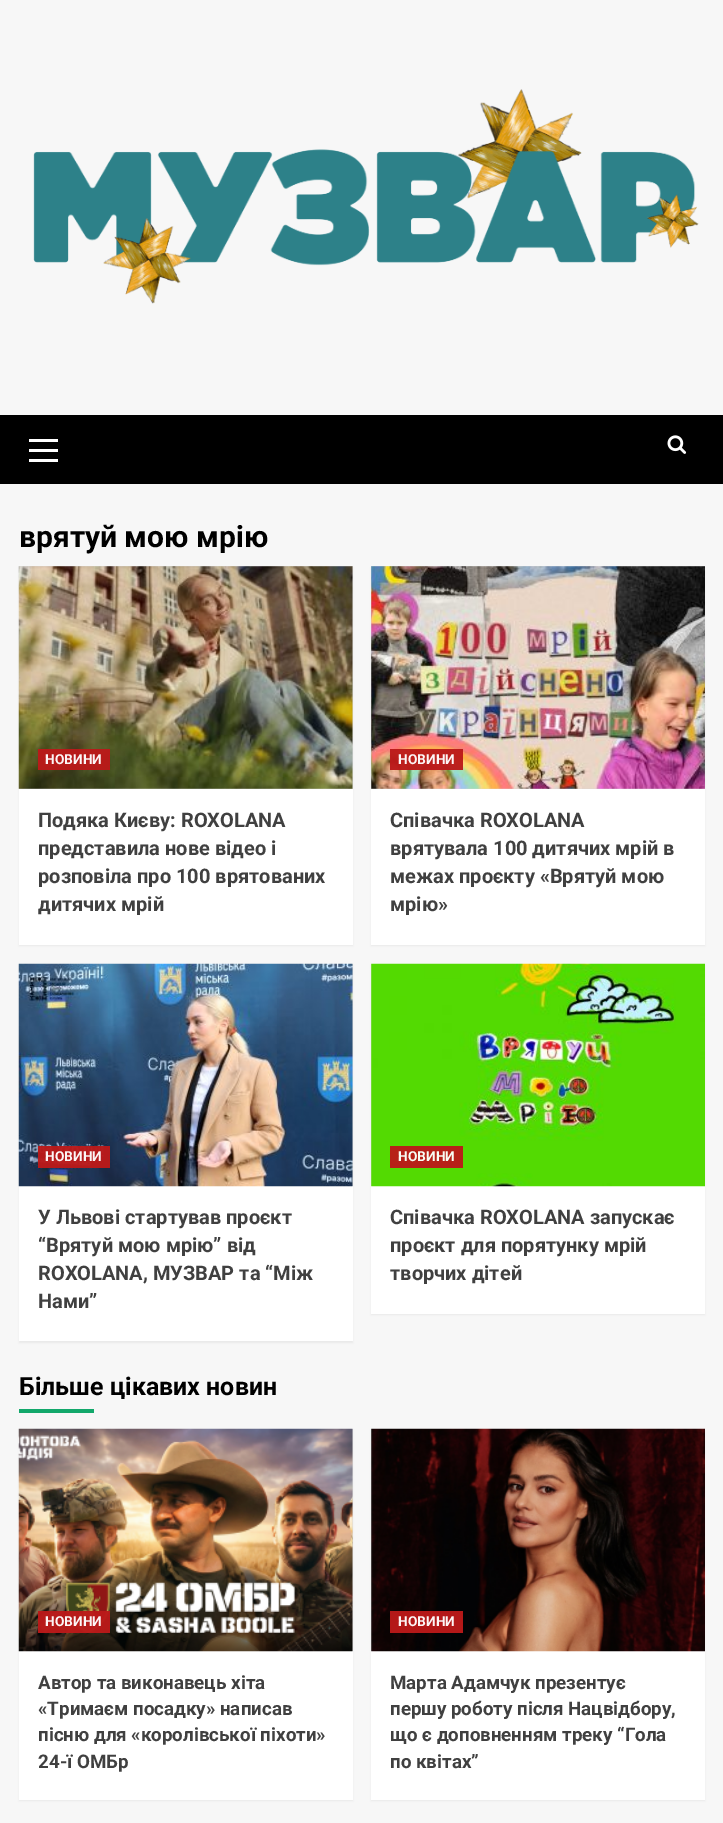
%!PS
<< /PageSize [723 1823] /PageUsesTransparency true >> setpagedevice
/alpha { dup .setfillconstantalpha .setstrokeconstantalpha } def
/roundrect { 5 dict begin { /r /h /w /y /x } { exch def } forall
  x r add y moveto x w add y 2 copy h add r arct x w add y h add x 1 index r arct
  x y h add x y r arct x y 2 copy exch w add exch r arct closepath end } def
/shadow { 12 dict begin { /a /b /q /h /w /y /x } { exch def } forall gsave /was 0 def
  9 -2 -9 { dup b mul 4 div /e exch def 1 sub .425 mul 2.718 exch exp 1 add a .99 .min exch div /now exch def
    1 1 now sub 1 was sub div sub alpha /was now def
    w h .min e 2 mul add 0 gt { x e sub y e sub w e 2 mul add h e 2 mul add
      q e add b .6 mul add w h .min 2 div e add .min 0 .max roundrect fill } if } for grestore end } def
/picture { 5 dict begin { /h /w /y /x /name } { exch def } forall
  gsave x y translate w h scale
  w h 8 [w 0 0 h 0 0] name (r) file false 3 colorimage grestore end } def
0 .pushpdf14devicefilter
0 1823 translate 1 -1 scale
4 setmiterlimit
0.969 setgray
0 0 723 1823 rectfill
(img1.rgb) 33 89 666 215 picture
0 setgray
0 415 723 69 rectfill
1 setgray
29 449 29 3 rectfill
29 439 29 3 rectfill
29 459 29 3 rectfill
(img2.rgb) 667 435 20 19 picture
/Roboto-Bold [30 0 0 -30 0 0] selectfont
0 setgray
19 547 moveto (врятуй мою мрію) show
19 568 334 378 0 1 0.05 shadow
1 setgray
19 789 334 156 rectfill
0.847 setgray
19 566 334 223 rectfill
(img3.rgb) 18 566 335 223 picture
0.96 alpha
0.733 0.098 0.098 setrgbcolor
38 749 72 21 rectfill
/Roboto-Bold [13.75 0 0 -13.75 0 0] selectfont
1 alpha
0.988 0.965 0.965 setrgbcolor
45 764 moveto (НОВИНИ) show
/Roboto-Bold [20 0 0 -20 0 0] selectfont
0.251 setgray
38 827 moveto (Подяка Києву: ROXOLANA) show
38 855 moveto (представила нове відео і) show
38 883 moveto (розповіла про 100 врятованих) show
38 911 moveto (дитячих мрій) show
0 setgray
371 568 334 378 0 1 0.05 shadow
1 setgray
371 789 334 156 rectfill
0.847 setgray
371 566 334 223 rectfill
(img4.rgb) 371 566 334 223 picture
0.96 alpha
0.733 0.098 0.098 setrgbcolor
390 749 73 21 rectfill
/Roboto-Bold [13.75 0 0 -13.75 0 0] selectfont
1 alpha
0.988 0.965 0.965 setrgbcolor
398 764 moveto (НОВИНИ) show
/Roboto-Bold [20 0 0 -20 0 0] selectfont
0.251 setgray
390 827 moveto (Співачка ROXOLANA) show
390 855 moveto (врятувала 100 дитячих мрій в) show
390 883 moveto (межах проєкту «Врятуй мою) show
390 911 moveto (мрію») show
0 setgray
19 965 334 378 0 1 0.05 shadow
1 setgray
19 1186 334 155 rectfill
0.847 setgray
352 964 1 222 rectfill
(img5.rgb) 18 963 335 224 picture
0.96 alpha
0.733 0.098 0.098 setrgbcolor
38 1146 72 22 rectfill
/Roboto-Bold [13.75 0 0 -13.75 0 0] selectfont
1 alpha
0.988 0.965 0.965 setrgbcolor
45 1161 moveto (НОВИНИ) show
/Roboto-Bold [20 0 0 -20 0 0] selectfont
0.251 setgray
38 1224 moveto (У Львові стартував проєкт) show
38 1252 moveto (“Врятуй мою мрію” від) show
38 1280 moveto (ROXOLANA, МУЗВАР та “Між) show
38 1308 moveto (Нами”) show
0 setgray
371 965 334 350 0 1 0.05 shadow
1 setgray
371 964 334 350 rectfill
(img6.rgb) 371 963 334 224 picture
0.718 0.129 0.094 setrgbcolor
390 1146 73 22 rectfill
/Roboto-Bold [13.75 0 0 -13.75 0 0] selectfont
0.973 0.996 0.961 setrgbcolor
398 1161 moveto (НОВИНИ) show
/Roboto-Bold [20 0 0 -20 0 0] selectfont
0.251 setgray
390 1224 moveto (Співачка ROXOLANA запускає) show
390 1252 moveto (проєкт для порятунку мрій) show
390 1280 moveto (творчих дітей) show
/Roboto-Bold [25 0 0 -25 0 0] selectfont
0 setgray
19 1395 moveto (Більше цікавих новин) show
0.071 0.659 0.42 setrgbcolor
19 1409 75 4 rectfill
0 setgray
19 1430 334 371 0 1 0.05 shadow
1 setgray
19 1651 334 149 rectfill
0.847 setgray
352 1429 1 222 rectfill
(img7.rgb) 18 1428 335 224 picture
0.96 alpha
0.733 0.098 0.098 setrgbcolor
38 1611 72 22 rectfill
/Roboto-Bold [13.75 0 0 -13.75 0 0] selectfont
1 alpha
0.988 0.965 0.965 setrgbcolor
45 1626 moveto (НОВИНИ) show
/Roboto-Bold [18.75 0 0 -18.75 0 0] selectfont
0.251 setgray
38 1689 moveto (Автор та виконавець хіта) show
38 1715 moveto («Тримаєм посадку» написав) show
38 1741 moveto (пісню для «королівської піхоти») show
38 1768 moveto (24-ї ОМБр) show
0 setgray
371 1430 334 371 0 1 0.05 shadow
1 setgray
371 1429 334 371 rectfill
(img8.rgb) 371 1428 334 224 picture
0.96 alpha
0.733 0.098 0.098 setrgbcolor
390 1611 73 22 rectfill
/Roboto-Bold [13.75 0 0 -13.75 0 0] selectfont
1 alpha
0.988 0.965 0.965 setrgbcolor
398 1626 moveto (НОВИНИ) show
/Roboto-Bold [18.75 0 0 -18.75 0 0] selectfont
0.251 setgray
390 1689 moveto (Марта Адамчук презентує) show
390 1715 moveto (першу роботу після Нацвідбору,) show
390 1741 moveto (що є доповненням треку “Гола) show
390 1768 moveto (по квітах”) show
.poppdf14devicefilter showpage
